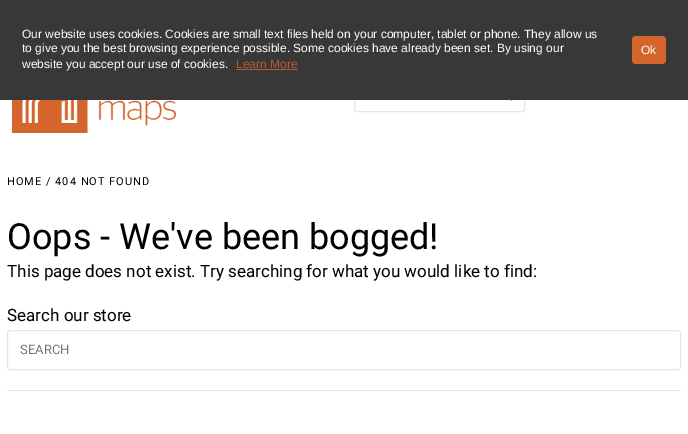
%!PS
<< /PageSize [688 434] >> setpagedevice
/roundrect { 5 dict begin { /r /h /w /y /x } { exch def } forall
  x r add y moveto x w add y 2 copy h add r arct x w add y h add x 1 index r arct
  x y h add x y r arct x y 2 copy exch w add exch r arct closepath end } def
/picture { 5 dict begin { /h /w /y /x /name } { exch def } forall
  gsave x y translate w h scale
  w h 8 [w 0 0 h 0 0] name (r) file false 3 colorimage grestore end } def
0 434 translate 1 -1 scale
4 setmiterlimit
1 setgray
0 0 688 434 rectfill
0.898 setgray
354.5 72.5 170 39 2.5 roundrect stroke
0.22 setgray
0 0 688 100 rectfill
/LiberationSans-Regular [12 0 0 -12 0 0] selectfont
1 setgray
22 38 moveto (Our website uses cookies. Cookies are small text files held on your computer, tablet or phone. They allow us) show
22 52 moveto (to give you the best browsing experience possible. Some cookies have already been set. By using our) show
22 68 moveto (website you accept our use of cookies.) show
0.714 0.361 0.184 setrgbcolor
236 68 moveto (Learn More) show
236 69 62 1 rectfill
0.839 0.396 0.176 setrgbcolor
632 36 34 28 4 roundrect fill
1 setgray
641 54 moveto (Ok) show
(img1.rgb) 510 100 3 1 picture
(img2.rgb) 12 100 164 33 picture
/Roboto-Regular [11 0 0 -11 0 0] selectfont
0 setgray
7 185 moveto 1 0 (HOME / 404 NOT FOUND) ashow
/Roboto-Regular [36 0 0 -36 0 0] selectfont
7 249 moveto (Oops - We've been bogged!) show
/Roboto-Regular [17 0 0 -17 0 0] selectfont
7 277 moveto (This page does not exist. Try searching for what you would like to find:) show
0.898 setgray
7 390 674 1 rectfill
0 setgray
7 321 moveto (Search our store) show
0.898 setgray
7.5 330.5 673 39 2.5 roundrect stroke
/Roboto-Regular [13 0 0 -13 0 0] selectfont
0.459 setgray
20 354 moveto (SEARCH) show
showpage
